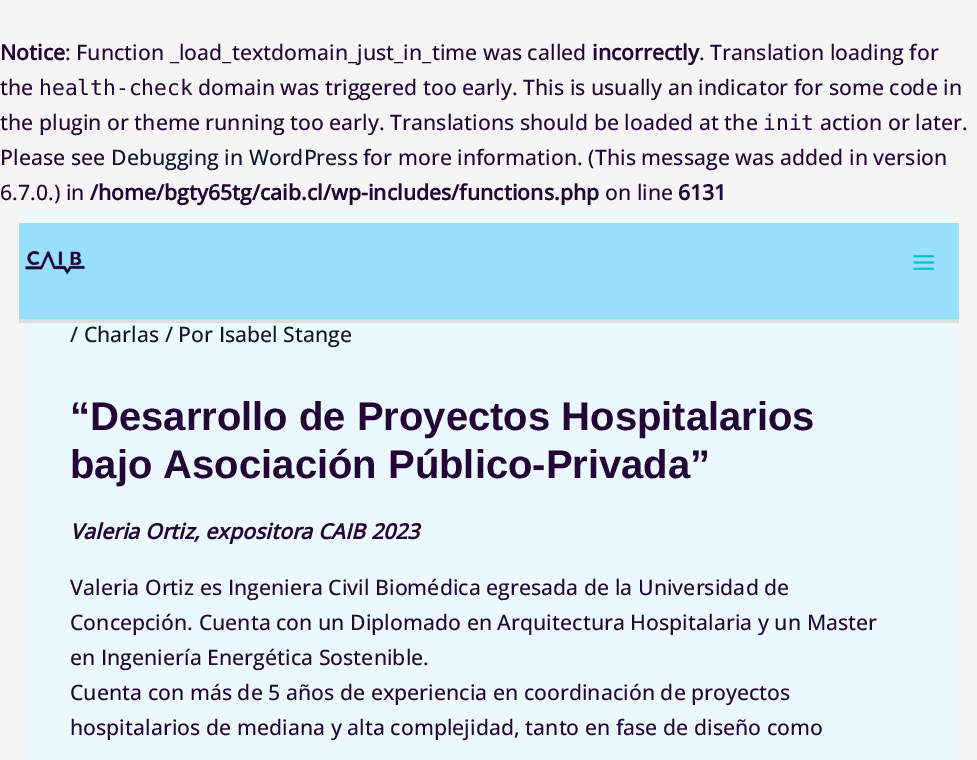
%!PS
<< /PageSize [977 760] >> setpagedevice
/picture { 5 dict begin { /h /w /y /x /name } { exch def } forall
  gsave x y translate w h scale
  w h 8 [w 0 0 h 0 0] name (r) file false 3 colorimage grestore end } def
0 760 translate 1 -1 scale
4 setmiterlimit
0.961 setgray
0 0 977 760 rectfill
/OpenSans-Bold [21.25 0 0 -21.25 0 0] selectfont
0.137 0.024 0.208 setrgbcolor
0 60 moveto (Notice) show
/OpenSans-Medium [21.25 0 0 -21.25 0 0] selectfont
65 60 moveto (: Function _load_textdomain_just_in_time was called) show
/OpenSans-Bold [21.25 0 0 -21.25 0 0] selectfont
592 60 moveto (incorrectly) show
/OpenSans-Medium [21.25 0 0 -21.25 0 0] selectfont
699 60 moveto (. Translation loading for) show
0 95 moveto (the) show
/DejaVuSansMono-Regular [21.25 0 0 -21.25 0 0] selectfont
39 95 moveto (health-check) show
/OpenSans-Medium [21.25 0 0 -21.25 0 0] selectfont
198 95 moveto (domain was triggered too early. This is usually an indicator for some code in) show
0 130 moveto (the plugin or theme running too early. Translations should be loaded at the) show
/DejaVuSansMono-Regular [21.25 0 0 -21.25 0 0] selectfont
763 130 moveto (init) show
/OpenSans-Medium [21.25 0 0 -21.25 0 0] selectfont
820 130 moveto (action or later.) show
0 165 moveto (Please see) show
0.059 0.09 0.165 setrgbcolor
111 165 moveto (Debugging in WordPress) show
0.137 0.024 0.208 setrgbcolor
363 165 moveto (for more information. \(This message was added in version) show
0 200 moveto (6.7.0.\) in) show
/OpenSans-Bold [21.25 0 0 -21.25 0 0] selectfont
90 200 moveto (/home/bgty65tg/caib.cl/wp-includes/functions.php) show
/OpenSans-Medium [21.25 0 0 -21.25 0 0] selectfont
605 200 moveto (on line) show
/OpenSans-Bold [21.25 0 0 -21.25 0 0] selectfont
678 200 moveto (6131) show
0.922 0.976 1 setrgbcolor
25 210 928 550 rectfill
0.596 0.875 0.992 setrgbcolor
19 223 940 96 rectfill
0.867 setgray
19 319 940 4 rectfill
(img1.rgb) 25 250 60 25 picture
(img2.rgb) 913 255 22 15 picture
/OpenSans-Medium [21.25 0 0 -21.25 0 0] selectfont
0.059 0.09 0.165 setrgbcolor
70 342 moveto (/ Charlas / Por Isabel Stange) show
/LiberationSans-Bold [40 0 0 -40 0 0] selectfont
0.137 0.024 0.208 setrgbcolor
70 430 moveto (“Desarrollo de Proyectos Hospitalarios) show
70 478 moveto (bajo Asociación Público-Privada”) show
/OpenSans-BoldItalic [21.25 0 0 -21.25 0 0] selectfont
70 539 moveto (Valeria Ortiz, expositora CAIB 2023) show
/OpenSans-Medium [21.25 0 0 -21.25 0 0] selectfont
70 595 moveto (Valeria Ortiz es Ingeniera Civil Biomédica egresada de la Universidad de) show
70 630 moveto (Concepción. Cuenta con un Diplomado en Arquitectura Hospitalaria y un Master) show
70 665 moveto (en Ingeniería Energética Sostenible.) show
70 700 moveto (Cuenta con más de 5 años de experiencia en coordinación de proyectos) show
70 735 moveto (hospitalarios de mediana y alta complejidad, tanto en fase de diseño como) show
showpage
